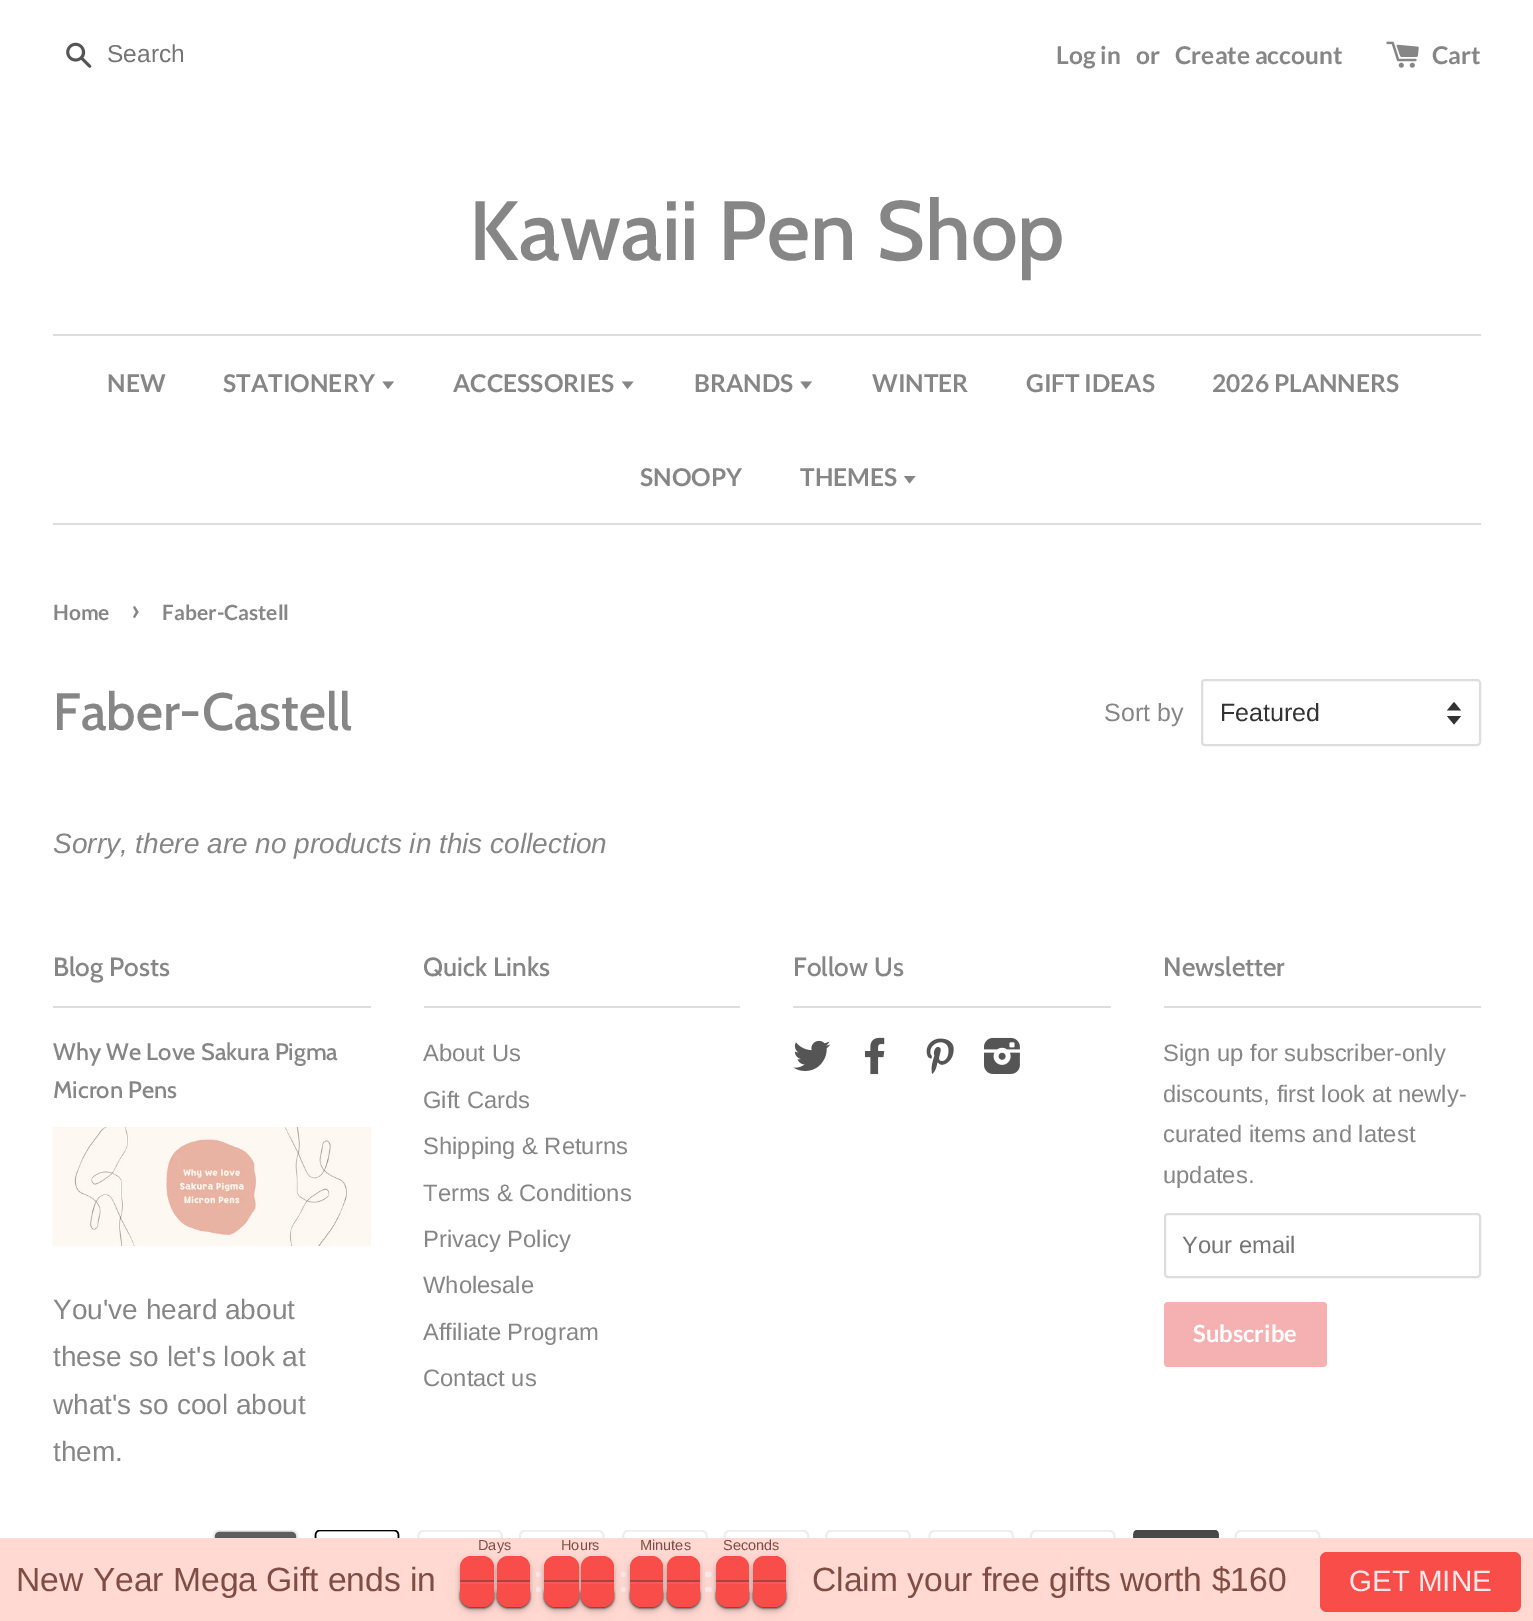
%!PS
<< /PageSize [1533 1621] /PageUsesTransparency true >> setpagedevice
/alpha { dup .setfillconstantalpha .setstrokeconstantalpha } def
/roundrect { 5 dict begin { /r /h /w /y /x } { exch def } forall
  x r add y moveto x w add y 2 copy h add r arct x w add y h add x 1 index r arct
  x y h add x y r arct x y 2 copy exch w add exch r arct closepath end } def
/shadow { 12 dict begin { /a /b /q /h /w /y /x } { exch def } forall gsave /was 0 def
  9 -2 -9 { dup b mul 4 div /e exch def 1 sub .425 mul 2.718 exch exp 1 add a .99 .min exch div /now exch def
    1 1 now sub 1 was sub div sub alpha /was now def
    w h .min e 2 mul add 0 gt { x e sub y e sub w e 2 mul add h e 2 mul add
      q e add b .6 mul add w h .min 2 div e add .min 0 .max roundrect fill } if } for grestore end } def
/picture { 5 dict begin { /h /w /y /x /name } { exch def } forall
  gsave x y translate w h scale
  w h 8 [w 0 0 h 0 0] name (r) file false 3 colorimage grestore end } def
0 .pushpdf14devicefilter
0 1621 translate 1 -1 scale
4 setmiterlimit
1 setgray
0 0 1533 1621 rectfill
(img1.rgb) 66 42 26 26 picture
/LiberationSans-Regular [24.5 0 0 -24.5 0 0] selectfont
0.459 setgray
107 62 moveto (Search) show
/Lato-Bold [24.5 0 0 -24.5 0 0] selectfont
0.525 setgray
1056 64 moveto (Log in) show
1136 64 moveto (or) show
1175 64 moveto (Create account) show
(img2.rgb) 1386 41 33 27 picture
1432 64 moveto (Cart) show
/Cabin-Medium [84 0 0 -84 0 0] selectfont
469 260 moveto (Kawaii Pen Shop) show
0.867 setgray
53 334 1428 2 rectfill
53 523 1428 2 rectfill
/Lato-Bold [24.5 0 0 -24.5 0 0] selectfont
0.525 setgray
107 392 moveto (NEW) show
223 392 moveto (STATIONERY) show
newpath 382.5 381.5 moveto 388 389 lineto 394 381.5 lineto closepath fill
453 392 moveto (ACCESSORIES) show
newpath 622 381.5 moveto 627.5 389 lineto 633.5 381.5 lineto closepath fill
694 392 moveto (BRANDS) show
newpath 800.5 381.5 moveto 806 389 lineto 812 381.5 lineto closepath fill
872 392 moveto (WINTER) show
1026 392 moveto (GIFT IDEAS) show
1212 392 moveto (2026 PLANNERS) show
640 486 moveto (SNOOPY) show
800 486 moveto (THEMES) show
newpath 904 476 moveto 909.5 483.5 lineto 915.5 476 lineto closepath fill
/Lato-Bold [21 0 0 -21 0 0] selectfont
53 620 moveto (Home) show
/Lato-Bold [29.5 0 0 -29.5 0 0] selectfont
131 620 moveto (›) show
/Lato-Bold [21 0 0 -21 0 0] selectfont
162 620 moveto (Faber-Castell) show
/Cabin-Medium [52.5 0 0 -52.5 0 0] selectfont
53 730 moveto (Faber-Castell) show
/LiberationSans-Regular [25 0 0 -25 0 0] selectfont
1104 721 moveto (Sort by) show
0.2 setgray
newpath 1447 716 moveto 1454 724.5 lineto 1461 716 lineto closepath 1454 702 moveto 1447 710.5 lineto 1461 710.5 lineto closepath fill
0.867 setgray
2 setlinewidth
1202 680 278 65 3 roundrect stroke
0.2 setgray
1220 721 moveto (Featured) show
/LiberationSans-Italic [28 0 0 -28 0 0] selectfont
0.525 setgray
53 853 moveto (Sorry, there are no products in this collection) show
0.867 setgray
53 1006 318 2 rectfill
/Cabin-Medium [26.25 0 0 -26.25 0 0] selectfont
0.525 setgray
53 976 moveto (Blog Posts) show
/Cabin-Medium [23.75 0 0 -23.75 0 0] selectfont
53 1060 moveto (Why We Love Sakura Pigma) show
53 1098 moveto (Micron Pens) show
(img3.rgb) 52 1127 319 119 picture
/LiberationSans-Regular [28 0 0 -28 0 0] selectfont
53 1319 moveto (You've heard about) show
53 1366 moveto (these so let's look at) show
53 1414 moveto (what's so cool about) show
53 1461 moveto (them.) show
0.867 setgray
424 1006 316 2 rectfill
/Cabin-Medium [26.25 0 0 -26.25 0 0] selectfont
0.525 setgray
423 976 moveto (Quick Links) show
/LiberationSans-Regular [23.75 0 0 -23.75 0 0] selectfont
423 1061 moveto (About Us) show
423 1108 moveto (Gift Cards) show
423 1154 moveto (Shipping & Returns) show
423 1201 moveto (Terms & Conditions) show
423 1247 moveto (Privacy Policy) show
423 1293 moveto (Wholesale) show
423 1340 moveto (Affiliate Program) show
423 1386 moveto (Contact us) show
0.867 setgray
793 1006 318 2 rectfill
/Cabin-Medium [26.25 0 0 -26.25 0 0] selectfont
0.525 setgray
793 976 moveto (Follow Us) show
(img4.rgb) 793 1040 38 31 picture
(img5.rgb) 865 1037 20 38 picture
(img6.rgb) 926 1038 28 36 picture
(img7.rgb) 984 1037 36 37 picture
0.867 setgray
1164 1006 317 2 rectfill
0.525 setgray
1163 976 moveto (Newsletter) show
/LiberationSans-Regular [23.75 0 0 -23.75 0 0] selectfont
1163 1061 moveto (Sign up for subscriber-only) show
1163 1102 moveto (discounts, first look at newly-) show
1163 1142 moveto (curated items and latest) show
1163 1183 moveto (updates.) show
0.867 setgray
1165 1214 315 63 3 roundrect stroke
0.459 setgray
1182 1253 moveto (Your email) show
0.961 0.694 0.694 setrgbcolor
1164 1302 163 65 4 roundrect fill
/Lato-Bold [23.75 0 0 -23.75 0 0] selectfont
1 setgray
1193 1342 moveto (Subscribe) show
(img8.rgb) 212 1530 87 8 picture
(img9.rgb) 314 1530 86 8 picture
(img10.rgb) 417 1530 86 8 picture
(img11.rgb) 519 1530 86 8 picture
(img12.rgb) 622 1530 86 8 picture
(img13.rgb) 723 1530 87 8 picture
(img12.rgb) 825 1530 86 8 picture
(img10.rgb) 928 1530 86 8 picture
(img11.rgb) 1030 1530 86 8 picture
(img14.rgb) 1133 1530 86 8 picture
(img13.rgb) 1234 1530 87 8 picture
1 0.851 0.824 setrgbcolor
0 1538 1533 83 rectfill
0 setgray
460 1561 34 51 11 7 0.05 shadow
460 1559 34 51 11 2.5 0.24 shadow
460 1584 34 24 11 1 0.4 shadow
497 1561 33 51 11 7 0.05 shadow
497 1559 33 51 11 2.5 0.24 shadow
497 1584 33 24 11 1 0.4 shadow
0.976 0.302 0.29 setrgbcolor
newpath 471 1556 moveto 483 1556 lineto 489 1556 494 1561 494 1567 curveto 494 1582 lineto 460 1582 lineto 460 1567 lineto 460 1561 465 1556 471 1556 curveto closepath fill
0.4 alpha
0.2 setgray
460 1580 34 2 rectfill
1 alpha
0 setgray
460 1584 34 24 11 1 0.4 shadow
0.976 0.302 0.29 setrgbcolor
newpath 460 1582 moveto 494 1582 lineto 494 1596 lineto 494 1602 489 1607 483 1607 curveto 471 1607 lineto 465 1607 460 1602 460 1596 curveto closepath fill
0.1 alpha
0.8 setgray
460 1582 34 2 rectfill
1 alpha
0.98 0.91 0.922 setrgbcolor
newpath 538.5 1574.5 2.5 0 360 arc closepath fill
newpath 538.5 1589.5 2.5 0 360 arc closepath fill
0 setgray
544 1561 35 51 11 7 0.05 shadow
0.976 0.302 0.29 setrgbcolor
newpath 508 1556 moveto 519 1556 lineto 525 1556 530 1561 530 1567 curveto 530 1582 lineto 497 1582 lineto 497 1567 lineto 497 1561 502 1556 508 1556 curveto closepath fill
0.4 alpha
0.2 setgray
497 1580 33 2 rectfill
1 alpha
0 setgray
497 1584 33 24 11 1 0.4 shadow
0.976 0.302 0.29 setrgbcolor
newpath 497 1582 moveto 530 1582 lineto 530 1596 lineto 530 1602 525 1607 519 1607 curveto 508 1607 lineto 502 1607 497 1602 497 1596 curveto closepath fill
0.1 alpha
0.8 setgray
497 1582 33 2 rectfill
/LiberationSans-Regular [14.5 0 0 -14.5 0 0] selectfont
1 alpha
0.498 0.302 0.263 setrgbcolor
478 1550 moveto (Days) show
0 setgray
544 1559 35 51 11 2.5 0.24 shadow
544 1584 35 24 11 1 0.4 shadow
581 1561 33 51 11 7 0.05 shadow
581 1559 33 51 11 2.5 0.24 shadow
581 1584 33 24 11 1 0.4 shadow
0.976 0.302 0.29 setrgbcolor
newpath 555 1556 moveto 568 1556 lineto 574 1556 579 1561 579 1567 curveto 579 1582 lineto 544 1582 lineto 544 1567 lineto 544 1561 549 1556 555 1556 curveto closepath fill
0.4 alpha
0.2 setgray
544 1580 35 2 rectfill
1 alpha
0 setgray
544 1584 35 24 11 1 0.4 shadow
0.976 0.302 0.29 setrgbcolor
newpath 544 1582 moveto 579 1582 lineto 579 1596 lineto 579 1602 574 1607 568 1607 curveto 555 1607 lineto 549 1607 544 1602 544 1596 curveto closepath fill
0.1 alpha
0.8 setgray
544 1582 35 2 rectfill
1 alpha
0.98 0.91 0.922 setrgbcolor
newpath 623.5 1574.5 2.5 0 360 arc closepath fill
newpath 623.5 1589.5 2.5 0 360 arc closepath fill
0 setgray
630 1561 33 51 11 7 0.05 shadow
0.976 0.302 0.29 setrgbcolor
newpath 592 1556 moveto 603 1556 lineto 609 1556 614 1561 614 1567 curveto 614 1582 lineto 581 1582 lineto 581 1567 lineto 581 1561 586 1556 592 1556 curveto closepath fill
0.4 alpha
0.2 setgray
581 1580 33 2 rectfill
1 alpha
0 setgray
581 1584 33 24 11 1 0.4 shadow
0.976 0.302 0.29 setrgbcolor
newpath 581 1582 moveto 614 1582 lineto 614 1596 lineto 614 1602 609 1607 603 1607 curveto 592 1607 lineto 586 1607 581 1602 581 1596 curveto closepath fill
0.1 alpha
0.8 setgray
581 1582 33 2 rectfill
1 alpha
0.498 0.302 0.263 setrgbcolor
561 1550 moveto (Hours) show
0 setgray
630 1559 33 51 11 2.5 0.24 shadow
630 1584 33 24 11 1 0.4 shadow
667 1561 33 51 11 7 0.05 shadow
667 1559 33 51 11 2.5 0.24 shadow
0.976 0.302 0.29 setrgbcolor
newpath 641 1556 moveto 652 1556 lineto 658 1556 663 1561 663 1567 curveto 663 1582 lineto 630 1582 lineto 630 1567 lineto 630 1561 635 1556 641 1556 curveto closepath fill
0.4 alpha
0.2 setgray
630 1580 33 2 rectfill
1 alpha
0 setgray
630 1584 33 24 11 1 0.4 shadow
0.976 0.302 0.29 setrgbcolor
newpath 630 1582 moveto 663 1582 lineto 663 1596 lineto 663 1602 658 1607 652 1607 curveto 641 1607 lineto 635 1607 630 1602 630 1596 curveto closepath fill
0.1 alpha
0.8 setgray
630 1582 33 2 rectfill
1 alpha
0.498 0.302 0.263 setrgbcolor
640 1550 moveto (Minutes) show
0 setgray
667 1584 33 24 11 1 0.4 shadow
0.98 0.91 0.922 setrgbcolor
705 1572 7 5 2.5 roundrect fill
705 1587 7 5 2.5 roundrect fill
0 setgray
716 1561 33 51 11 7 0.05 shadow
0.976 0.302 0.29 setrgbcolor
newpath 678 1556 moveto 689 1556 lineto 695 1556 700 1561 700 1567 curveto 700 1582 lineto 667 1582 lineto 667 1567 lineto 667 1561 672 1556 678 1556 curveto closepath fill
0.4 alpha
0.2 setgray
667 1580 33 2 rectfill
1 alpha
0 setgray
667 1584 33 24 11 1 0.4 shadow
0.976 0.302 0.29 setrgbcolor
newpath 667 1582 moveto 700 1582 lineto 700 1596 lineto 700 1602 695 1607 689 1607 curveto 678 1607 lineto 672 1607 667 1602 667 1596 curveto closepath fill
0.1 alpha
0.8 setgray
667 1582 33 2 rectfill
1 alpha
0 setgray
716 1559 33 51 11 2.5 0.24 shadow
716 1584 33 24 11 1 0.4 shadow
753 1561 33 51 11 7 0.05 shadow
753 1559 33 51 11 2.5 0.24 shadow
0.976 0.302 0.29 setrgbcolor
newpath 727 1556 moveto 738 1556 lineto 744 1556 749 1561 749 1567 curveto 749 1582 lineto 716 1582 lineto 716 1567 lineto 716 1561 721 1556 727 1556 curveto closepath fill
0.4 alpha
0.2 setgray
716 1580 33 2 rectfill
1 alpha
0 setgray
716 1584 33 24 11 1 0.4 shadow
0.976 0.302 0.29 setrgbcolor
newpath 716 1582 moveto 749 1582 lineto 749 1596 lineto 749 1602 744 1607 738 1607 curveto 727 1607 lineto 721 1607 716 1602 716 1596 curveto closepath fill
0.1 alpha
0.8 setgray
716 1582 33 2 rectfill
1 alpha
0.498 0.302 0.263 setrgbcolor
723 1550 moveto (Seconds) show
0 setgray
753 1584 33 24 11 1 0.4 shadow
0.976 0.302 0.29 setrgbcolor
newpath 764 1556 moveto 775 1556 lineto 781 1556 786 1561 786 1567 curveto 786 1582 lineto 753 1582 lineto 753 1567 lineto 753 1561 758 1556 764 1556 curveto closepath fill
0.4 alpha
0.2 setgray
753 1580 33 2 rectfill
1 alpha
0 setgray
753 1584 33 24 11 1 0.4 shadow
0.976 0.302 0.29 setrgbcolor
newpath 753 1582 moveto 786 1582 lineto 786 1596 lineto 786 1602 781 1607 775 1607 curveto 764 1607 lineto 758 1607 753 1602 753 1596 curveto closepath fill
0.1 alpha
0.8 setgray
753 1582 33 2 rectfill
/LiberationSans-Regular [33.6 0 0 -33.6 0 0] selectfont
1 alpha
0.498 0.302 0.263 setrgbcolor
16 1591 moveto (New Year Mega Gift ends in) show
812 1591 moveto (Claim your free gifts worth $160) show
0.976 0.302 0.29 setrgbcolor
1320 1552 201 60 7 roundrect fill
/LiberationSans-Regular [29.5 0 0 -29.5 0 0] selectfont
0.98 0.91 0.922 setrgbcolor
1349 1591 moveto (GET MINE) show
.poppdf14devicefilter showpage
